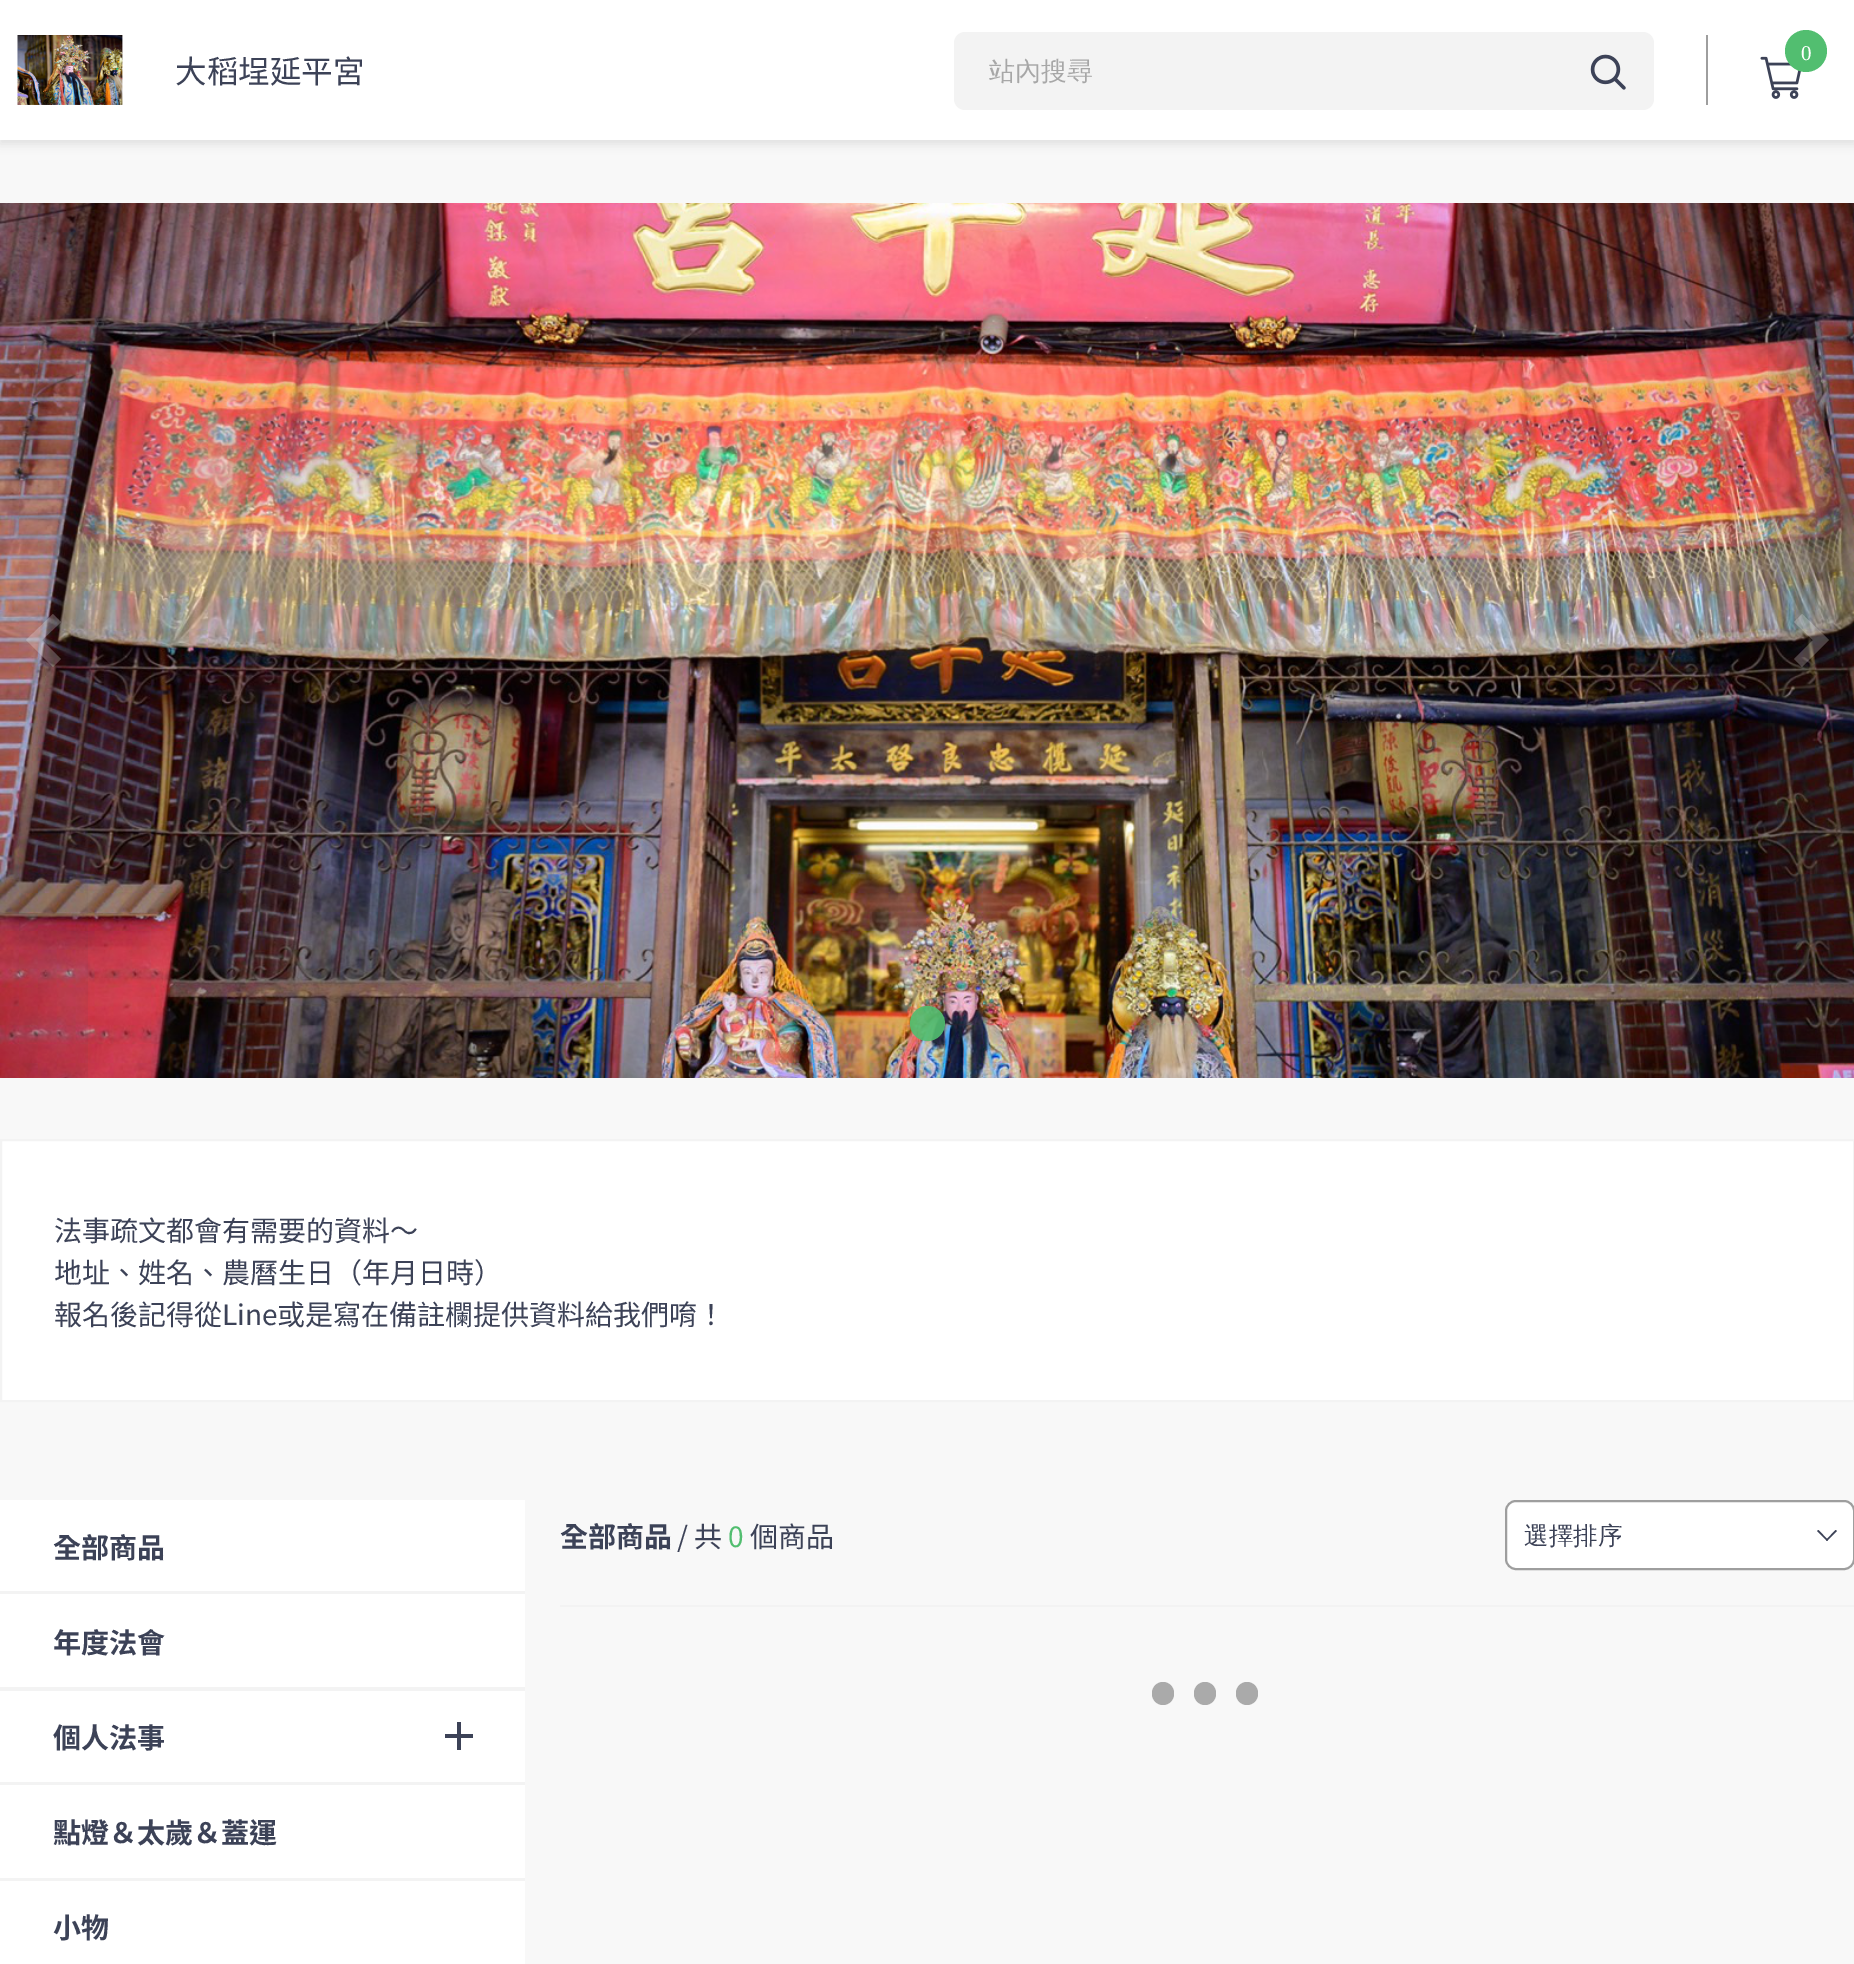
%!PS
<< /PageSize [1854 1964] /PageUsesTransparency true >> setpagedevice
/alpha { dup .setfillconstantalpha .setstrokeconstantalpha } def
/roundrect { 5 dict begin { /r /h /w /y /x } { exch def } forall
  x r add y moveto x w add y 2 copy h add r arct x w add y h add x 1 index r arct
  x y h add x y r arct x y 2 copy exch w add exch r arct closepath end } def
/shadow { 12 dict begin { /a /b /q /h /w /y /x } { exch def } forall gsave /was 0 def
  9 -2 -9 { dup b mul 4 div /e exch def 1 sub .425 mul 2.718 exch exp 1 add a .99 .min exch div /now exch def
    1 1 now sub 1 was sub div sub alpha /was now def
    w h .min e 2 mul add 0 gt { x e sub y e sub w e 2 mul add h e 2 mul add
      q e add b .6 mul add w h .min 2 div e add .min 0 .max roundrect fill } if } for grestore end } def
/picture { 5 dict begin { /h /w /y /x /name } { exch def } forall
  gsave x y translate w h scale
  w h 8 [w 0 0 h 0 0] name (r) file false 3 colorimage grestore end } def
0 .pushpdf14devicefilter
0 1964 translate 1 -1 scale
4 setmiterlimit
0.973 setgray
0 0 1854 1964 rectfill
0 setgray
0 4 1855 140 0 5 0.1 shadow
1 setgray
0 0 1854 140 rectfill
(img1.rgb) 17 35 106 70 picture
/NotoSansTC-Regular [31.5 0 0 -31.5 0 0] selectfont
0.235 0.259 0.341 setrgbcolor
175 83 moveto (大稻埕延平宮) show
0.62 setgray
1706 35 2 70 rectfill
(img2.rgb) 1760 56 41 43 picture
0.322 0.745 0.439 setrgbcolor
newpath 1806 51 21 0 360 arc closepath fill
/LiberationSerif-Regular [21 0 0 -21 0 0] selectfont
1 setgray
1801 60 moveto (0) show
0.953 setgray
954 32 700 78 11 roundrect fill
/WenQuanYiZenHei-Medium [26 0 0 -26 0 0] selectfont
0.655 setgray
989 80 moveto (站內搜尋) show
(img3.rgb) 1590 54 36 36 picture
(img4.rgb) 0 203 1854 875 picture
0.07 alpha
0.235 0.259 0.341 setrgbcolor
0 203 88 875 rectfill
0.24 alpha
1 setgray
newpath 61 659 moveto 42 640 lineto 61 622 lineto 53 614 lineto 26 640 lineto 53 667 lineto closepath fill
0.9 alpha
0.322 0.745 0.439 setrgbcolor
newpath 927.5 1023.5 17.5 0 360 arc closepath fill
0.07 alpha
0.235 0.259 0.341 setrgbcolor
1768 203 86 875 rectfill
0.24 alpha
1 setgray
newpath 1794 622 moveto 1813 640 lineto 1794 659 lineto 1802 667 lineto 1829 640 lineto 1802 614 lineto closepath fill
1 alpha
newpath 1 1140 moveto 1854 1140 lineto 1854 1401 lineto 1 1401 lineto closepath gsave fill grestore
0.953 setgray
2 setlinewidth
stroke
/NotoSansTC-Regular [28 0 0 -28 0 0] selectfont
0.235 0.259 0.341 setrgbcolor
54 1241 moveto (法事疏文都會有需要的資料～) show
54 1283 moveto (地址、姓名、農曆生日（年月日時）) show
54 1325 moveto (報名後記得從Line或是寫在備註欄提供資料給我們唷！) show
1 setgray
0 1500 525 282 rectfill
0.953 setgray
0 1591 525 3 rectfill
/NotoSansTC-Bold [28 0 0 -28 0 0] selectfont
0.235 0.259 0.341 setrgbcolor
53 1558 moveto (全部商品) show
0.953 setgray
0 1687 525 4 rectfill
0.235 0.259 0.341 setrgbcolor
53 1653 moveto (年度法會) show
0.953 setgray
0 1782 525 3 rectfill
0.235 0.259 0.341 setrgbcolor
53 1748 moveto (個人法事) show
457 1722 4 28 rectfill
445 1734 28 4 rectfill
0.953 setgray
0 1878 525 3 rectfill
1 setgray
0 1785 525 93 rectfill
0.235 0.259 0.341 setrgbcolor
53 1843 moveto (點燈＆太歲＆蓋運) show
1 setgray
0 1881 525 83 rectfill
0.235 0.259 0.341 setrgbcolor
53 1938 moveto (小物) show
560 1547 moveto (全部商品) show
/NotoSansTC-Regular [28 0 0 -28 0 0] selectfont
677 1547 moveto (/) show
694 1547 moveto (共) show
0.322 0.745 0.439 setrgbcolor
728 1547 moveto (0) show
0.235 0.259 0.341 setrgbcolor
750 1547 moveto (個商品) show
1 setgray
1506 1501 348 68 10 roundrect gsave fill grestore
0.62 setgray
stroke
/WenQuanYiZenHei-Medium [24.5 0 0 -24.5 0 0] selectfont
0.235 0.259 0.341 setrgbcolor
1524 1544 moveto (選擇排序) show
newpath 1835.5 1530 moveto 1837 1531 lineto 1827 1541 lineto 1826 1540 lineto closepath fill
newpath 1818.5 1530 moveto 1828 1540 lineto 1827 1541 lineto 1817 1531 lineto closepath fill
0.953 setgray
560 1605 1294 2 rectfill
0.667 setgray
1152 1682 22 23 11 roundrect fill
1194 1682 22 23 11 roundrect fill
1236 1682 22 23 11 roundrect fill
.poppdf14devicefilter showpage
